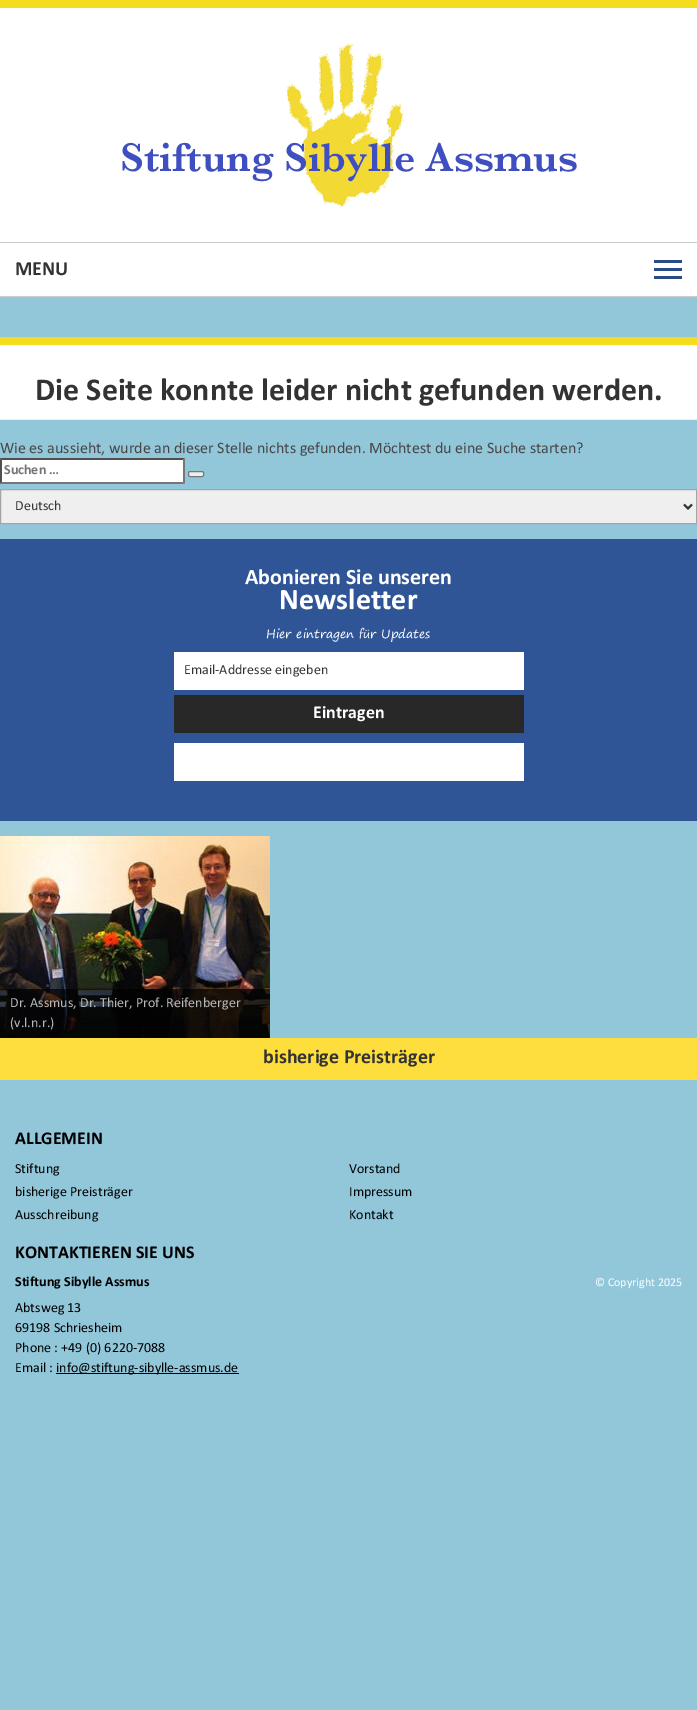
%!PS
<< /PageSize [697 1710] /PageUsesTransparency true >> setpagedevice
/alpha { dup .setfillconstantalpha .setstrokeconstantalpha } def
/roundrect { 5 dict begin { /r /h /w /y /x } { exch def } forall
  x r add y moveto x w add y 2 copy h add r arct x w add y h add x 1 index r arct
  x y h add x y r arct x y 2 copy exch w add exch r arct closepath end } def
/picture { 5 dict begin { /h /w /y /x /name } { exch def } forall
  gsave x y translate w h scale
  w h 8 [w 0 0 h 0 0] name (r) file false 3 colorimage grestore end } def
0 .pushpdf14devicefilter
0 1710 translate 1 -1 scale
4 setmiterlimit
0.573 0.78 0.855 setrgbcolor
0 0 697 1710 rectfill
1 setgray
0 8 697 234 rectfill
0.957 0.867 0.122 setrgbcolor
0 0 697 8 rectfill
(img1.rgb) 122 43 455 165 picture
1 setgray
0 243 697 53 rectfill
0.804 setgray
0 242 697 1 rectfill
0 296 697 1 rectfill
/Calibri-Bold [20 0 0 -20 0 0] selectfont
0.2 setgray
15 275 moveto (MENU) show
0.165 0.298 0.525 setrgbcolor
654 260 28 3 rectfill
654 268 28 3 rectfill
654 276 28 3 rectfill
1 setgray
0 345 697 74 rectfill
0.957 0.867 0.122 setrgbcolor
0 337 697 8 rectfill
0.933 setgray
0 419 697 1 rectfill
/Calibri-Bold [32 0 0 -32 0 0] selectfont
0.2 setgray
35 400 moveto (Die Seite konnte leider nicht gefunden werden.) show
/Calibri-Regular [16 0 0 -16 0 0] selectfont
0.278 setgray
0 453 moveto (Wie es aussieht, wurde an dieser Stelle nichts gefunden. Möchtest du eine Suche starten?) show
1 setgray
0 458 185 26 rectfill
0.31 setgray
newpath 0 458 moveto 185 458 lineto 183 460 lineto 2 460 lineto closepath fill
0.463 setgray
newpath 185 458 moveto 185 484 lineto 183 482 lineto 183 460 lineto closepath fill
newpath 185 484 moveto 0 484 lineto 2 482 lineto 183 482 lineto closepath fill
0.31 setgray
newpath 0 484 moveto 0 458 lineto 2 460 lineto 2 482 lineto closepath fill
/Calibri-Bold [14 0 0 -14 0 0] selectfont
0.459 setgray
4 474 moveto (Suchen …) show
0.937 setgray
188.5 471.5 15 5 1.5 roundrect gsave fill grestore
0.463 setgray
stroke
0.937 setgray
newpath 0.5 489.5 moveto 696.5 489.5 lineto 696.5 523.5 lineto 0.5 523.5 lineto closepath gsave fill grestore
0.647 setgray
stroke
0.2 setgray
2 setlinewidth
newpath 684 504.5 moveto 688 508.5 lineto 692 504.5 lineto stroke
/Calibri-Regular [14 0 0 -14 0 0] selectfont
15 510 moveto (Deutsch) show
0.184 0.333 0.592 setrgbcolor
0 539 697 282 rectfill
/Calibri-Bold [22 0 0 -22 0 0] selectfont
1 setgray
245 584 moveto (Abonieren Sie unseren) show
/Calibri-Bold [30 0 0 -30 0 0] selectfont
279 609 moveto (Newsletter) show
/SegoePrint-Regular [12 0 0 -12 0 0] selectfont
266 638 moveto (Hier eintragen für Updates) show
174 652 350 38 rectfill
/Calibri-Regular [14 0 0 -14 0 0] selectfont
0.2 setgray
184 674 moveto (Email-Addresse eingeben) show
0.157 setgray
174 695 350 38 rectfill
/Calibri-Bold [18 0 0 -18 0 0] selectfont
1 setgray
313 718 moveto (Eintragen) show
174 743 350 38 rectfill
(img2.rgb) 0 836 270 202 picture
0.7 alpha
0 setgray
0 989 270 49 rectfill
/Calibri-Regular [14 0 0 -14 0 0] selectfont
1 alpha
0.718 0.718 0.714 setrgbcolor
10 1007 moveto (Dr. Assmus, Dr. Thier, Prof. Reifenberger) show
10 1027 moveto (\(v.l.n.r.\)) show
0.996 0.871 0.239 setrgbcolor
0 1038 697 42 rectfill
/Calibri-Bold [20 0 0 -20 0 0] selectfont
0.2 setgray
263 1063 moveto (bisherige Preisträger) show
/Calibri-Bold [18 0 0 -18 0 0] selectfont
0 setgray
15 1144 moveto (ALLGEMEIN) show
/Calibri-Regular [14 0 0 -14 0 0] selectfont
15 1173 moveto (Stiftung) show
15 1196 moveto (bisherige Preisträger) show
15 1219 moveto (Ausschreibung) show
349 1173 moveto (Vorstand) show
349 1196 moveto (Impressum) show
349 1219 moveto (Kontakt) show
/Calibri-Bold [18 0 0 -18 0 0] selectfont
15 1258 moveto (KONTAKTIEREN SIE UNS) show
/Calibri-Bold [14 0 0 -14 0 0] selectfont
15 1286 moveto (Stiftung Sibylle Assmus) show
/Calibri-Regular [14 0 0 -14 0 0] selectfont
15 1312 moveto (Abtsweg 13) show
15 1332 moveto (69198 Schriesheim) show
15 1352 moveto (Phone : +49 \(0\) 6220-7088) show
15 1372 moveto (Email :) show
56 1373 183 1 rectfill
56 1372 moveto (info@stiftung-sibylle-assmus.de) show
/Calibri-Regular [12 0 0 -12 0 0] selectfont
1 setgray
595 1286 moveto (© Copyright 2025) show
.poppdf14devicefilter showpage
